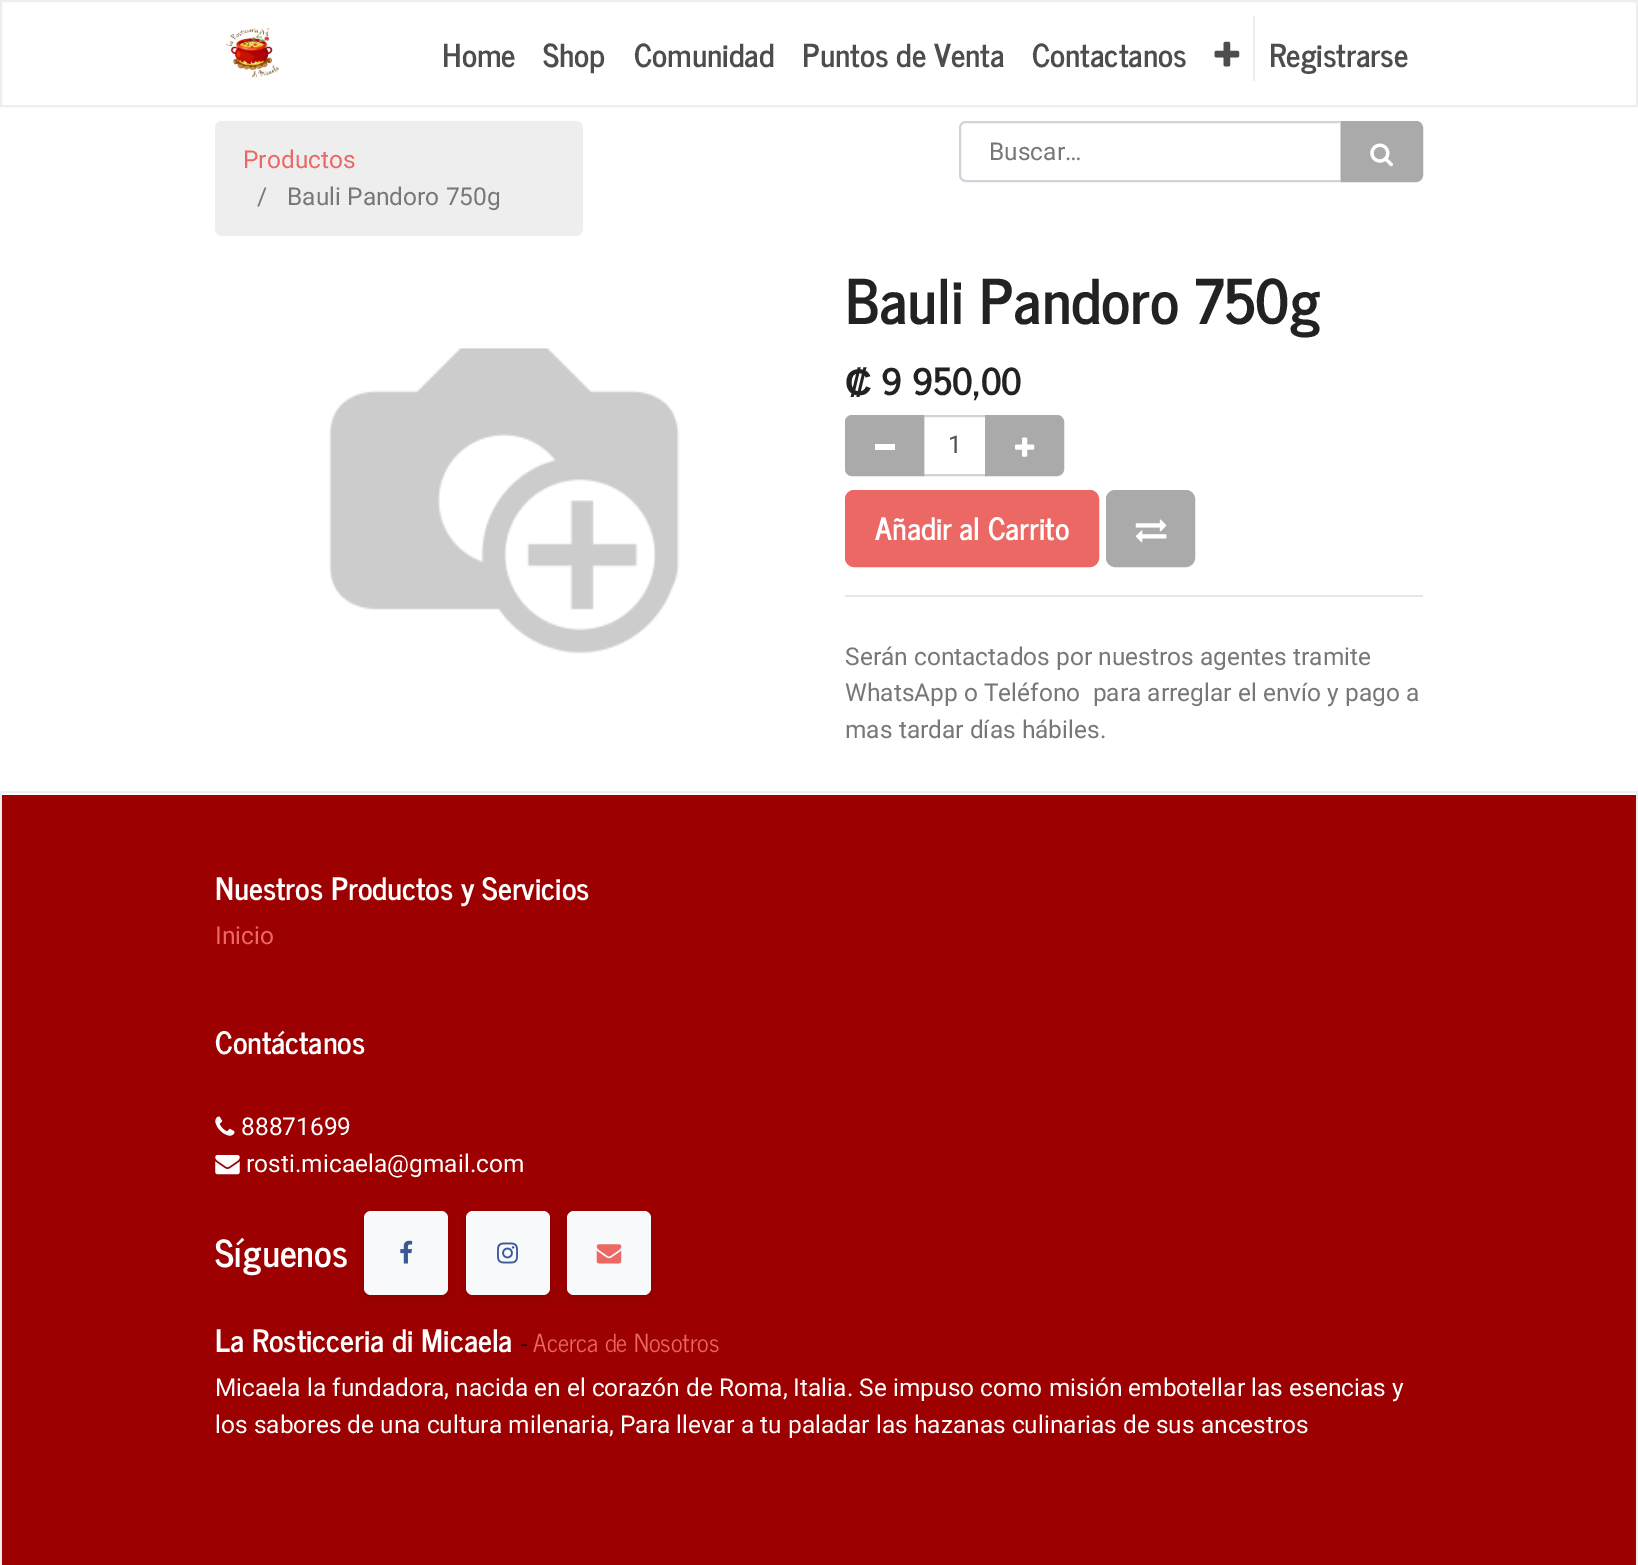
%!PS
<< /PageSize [1638 1565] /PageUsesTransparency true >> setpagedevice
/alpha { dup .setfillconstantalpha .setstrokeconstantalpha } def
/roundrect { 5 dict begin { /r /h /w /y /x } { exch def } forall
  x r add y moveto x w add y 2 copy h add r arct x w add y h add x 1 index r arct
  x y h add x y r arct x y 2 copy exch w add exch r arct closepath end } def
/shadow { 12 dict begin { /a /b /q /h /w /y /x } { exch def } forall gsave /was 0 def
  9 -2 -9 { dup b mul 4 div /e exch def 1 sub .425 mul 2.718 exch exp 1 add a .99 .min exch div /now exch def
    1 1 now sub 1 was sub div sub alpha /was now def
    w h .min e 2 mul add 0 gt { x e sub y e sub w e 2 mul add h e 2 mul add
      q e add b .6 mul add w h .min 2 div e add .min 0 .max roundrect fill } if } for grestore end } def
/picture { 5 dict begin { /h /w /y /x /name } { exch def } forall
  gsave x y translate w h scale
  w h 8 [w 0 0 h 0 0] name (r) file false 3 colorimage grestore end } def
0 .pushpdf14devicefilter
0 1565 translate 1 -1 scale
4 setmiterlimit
1 setgray
0 0 1638 1565 rectfill
0.933 setgray
2 setlinewidth
1 1 1636 105 rectstroke
(img1.rgb) 225 27 54 51 picture
/NewsCycle-Bold [31.5 0 0 -31.5 0 0] selectfont
0.302 setgray
442 67 moveto (Home) show
543 67 moveto (Shop) show
634 67 moveto (Comunidad) show
802 67 moveto (Puntos de Venta) show
1032 67 moveto (Contactanos) show
(img2.rgb) 1214 41 26 26 picture
0.933 setgray
1253 16 2 65 rectfill
0.302 setgray
1269 67 moveto (Registrarse) show
0.933 setgray
215 121 368 115 7 roundrect fill
/Roboto-Regular [24.5 0 0 -24.5 0 0] selectfont
0.922 0.408 0.392 setrgbcolor
243 168 moveto (Productos) show
0.467 setgray
257 205 moveto (/) show
287 205 moveto (Bauli Pandoro 750g) show
0.808 0.831 0.855 setrgbcolor
newpath 966 122 moveto 1341 122 lineto 1341 181 lineto 966 181 lineto 962.5 181 960 178.5 960 175 curveto 960 128 lineto 960 124.5 962.5 122 966 122 curveto closepath stroke
0.467 setgray
989 160 moveto (Buscar…) show
0.667 setgray
newpath 1342 122 moveto 1416 122 lineto 1419.5 122 1422 124.5 1422 128 curveto 1422 175 lineto 1422 178.5 1419.5 181 1416 181 curveto 1342 181 lineto closepath gsave fill grestore
stroke
(img3.rgb) 1370 143 23 24 picture
(img4.rgb) 329 348 351 306 picture
/NewsCycle-Bold [61.25 0 0 -61.25 0 0] selectfont
0.133 setgray
845 324 moveto (Bauli Pandoro 750g) show
/LiberationSans-Bold [37 0 0 -37 0 0] selectfont
845 395 moveto (₡) show
/NewsCycle-Bold [37 0 0 -37 0 0] selectfont
881 395 moveto (9 950,00) show
0.808 0.831 0.855 setrgbcolor
923 416 63 59 rectstroke
0.667 setgray
newpath 852 416 moveto 923 416 lineto 923 475 lineto 852 475 lineto 848.5 475 846 472.5 846 469 curveto 846 422 lineto 846 418.5 848.5 416 852 416 curveto closepath gsave fill grestore
stroke
1 setgray
875 444 20 6 rectfill
/Roboto-Regular [24.5 0 0 -24.5 0 0] selectfont
0.286 0.314 0.341 setrgbcolor
948 453 moveto (1) show
0.667 setgray
newpath 986 416 moveto 1057 416 lineto 1060.5 416 1063 418.5 1063 422 curveto 1063 469 lineto 1063 472.5 1060.5 475 1057 475 curveto 986 475 lineto closepath gsave fill grestore
stroke
(img5.rgb) 1015 437 20 20 picture
0.922 0.408 0.392 setrgbcolor
846 491 252 75 8 roundrect gsave fill grestore
stroke
/NewsCycle-Bold [30.6 0 0 -30.6 0 0] selectfont
1 setgray
875 540 moveto (Añadir al Carrito) show
0.667 setgray
1107 491 87 75 8 roundrect gsave fill grestore
stroke
(img6.rgb) 1135 519 32 24 picture
0.902 setgray
845 595 578 2 rectfill
/Roboto-Regular [24.5 0 0 -24.5 0 0] selectfont
0.467 setgray
845 665 moveto (Serán contactados por nuestros agentes tramite) show
845 701 moveto (WhatsApp o Teléfono  para arreglar el envío y pago a) show
845 738 moveto (mas tardar días hábiles.) show
0.933 setgray
1 792 1636 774 rectstroke
0.612 0 0 setrgbcolor
2 795 1634 770 rectfill
/NewsCycle-Bold [30.6 0 0 -30.6 0 0] selectfont
1 setgray
215 900 moveto (Nuestros Productos y Servicios) show
/Roboto-Regular [24.5 0 0 -24.5 0 0] selectfont
0.922 0.408 0.392 setrgbcolor
215 944 moveto (Inicio) show
/NewsCycle-Bold [30.6 0 0 -30.6 0 0] selectfont
1 setgray
215 1054 moveto (Contáctanos) show
(img7.rgb) 215 1116 20 20 picture
/Roboto-Regular [24.5 0 0 -24.5 0 0] selectfont
241 1135 moveto (88871699) show
(img8.rgb) 215 1155 25 20 picture
246 1172 moveto (rosti.micaela@gmail.com) show
/NewsCycle-Bold [37 0 0 -37 0 0] selectfont
215 1267 moveto (Síguenos) show
0 setgray
364 1215 84 84 7 3.5 0.07 shadow
0.973 0.976 0.98 setrgbcolor
364 1211 84 84 7 roundrect fill
(img9.rgb) 400 1240 13 24 picture
0 setgray
466 1215 84 84 7 3.5 0.07 shadow
0.973 0.976 0.98 setrgbcolor
466 1211 84 84 7 roundrect fill
(img10.rgb) 497 1242 21 22 picture
0 setgray
567 1215 84 84 7 3.5 0.07 shadow
0.973 0.976 0.98 setrgbcolor
567 1211 84 84 7 roundrect fill
(img11.rgb) 596 1244 26 20 picture
/NewsCycle-Bold [30.6 0 0 -30.6 0 0] selectfont
1 setgray
215 1352 moveto (La Rosticceria di Micaela) show
/NewsCycle-Regular [24.5 0 0 -24.5 0 0] selectfont
0 setgray
521 1352 moveto (-) show
0.922 0.408 0.392 setrgbcolor
533 1352 moveto (Acerca de Nosotros) show
/Roboto-Regular [24.5 0 0 -24.5 0 0] selectfont
1 setgray
215 1396 moveto (Micaela la fundadora, nacida en el corazón de Roma, Italia. Se impuso como misión embotellar las esencias y) show
215 1433 moveto (los sabores de una cultura milenaria, Para llevar a tu paladar las hazanas culinarias de sus ancestros) show
.poppdf14devicefilter showpage
